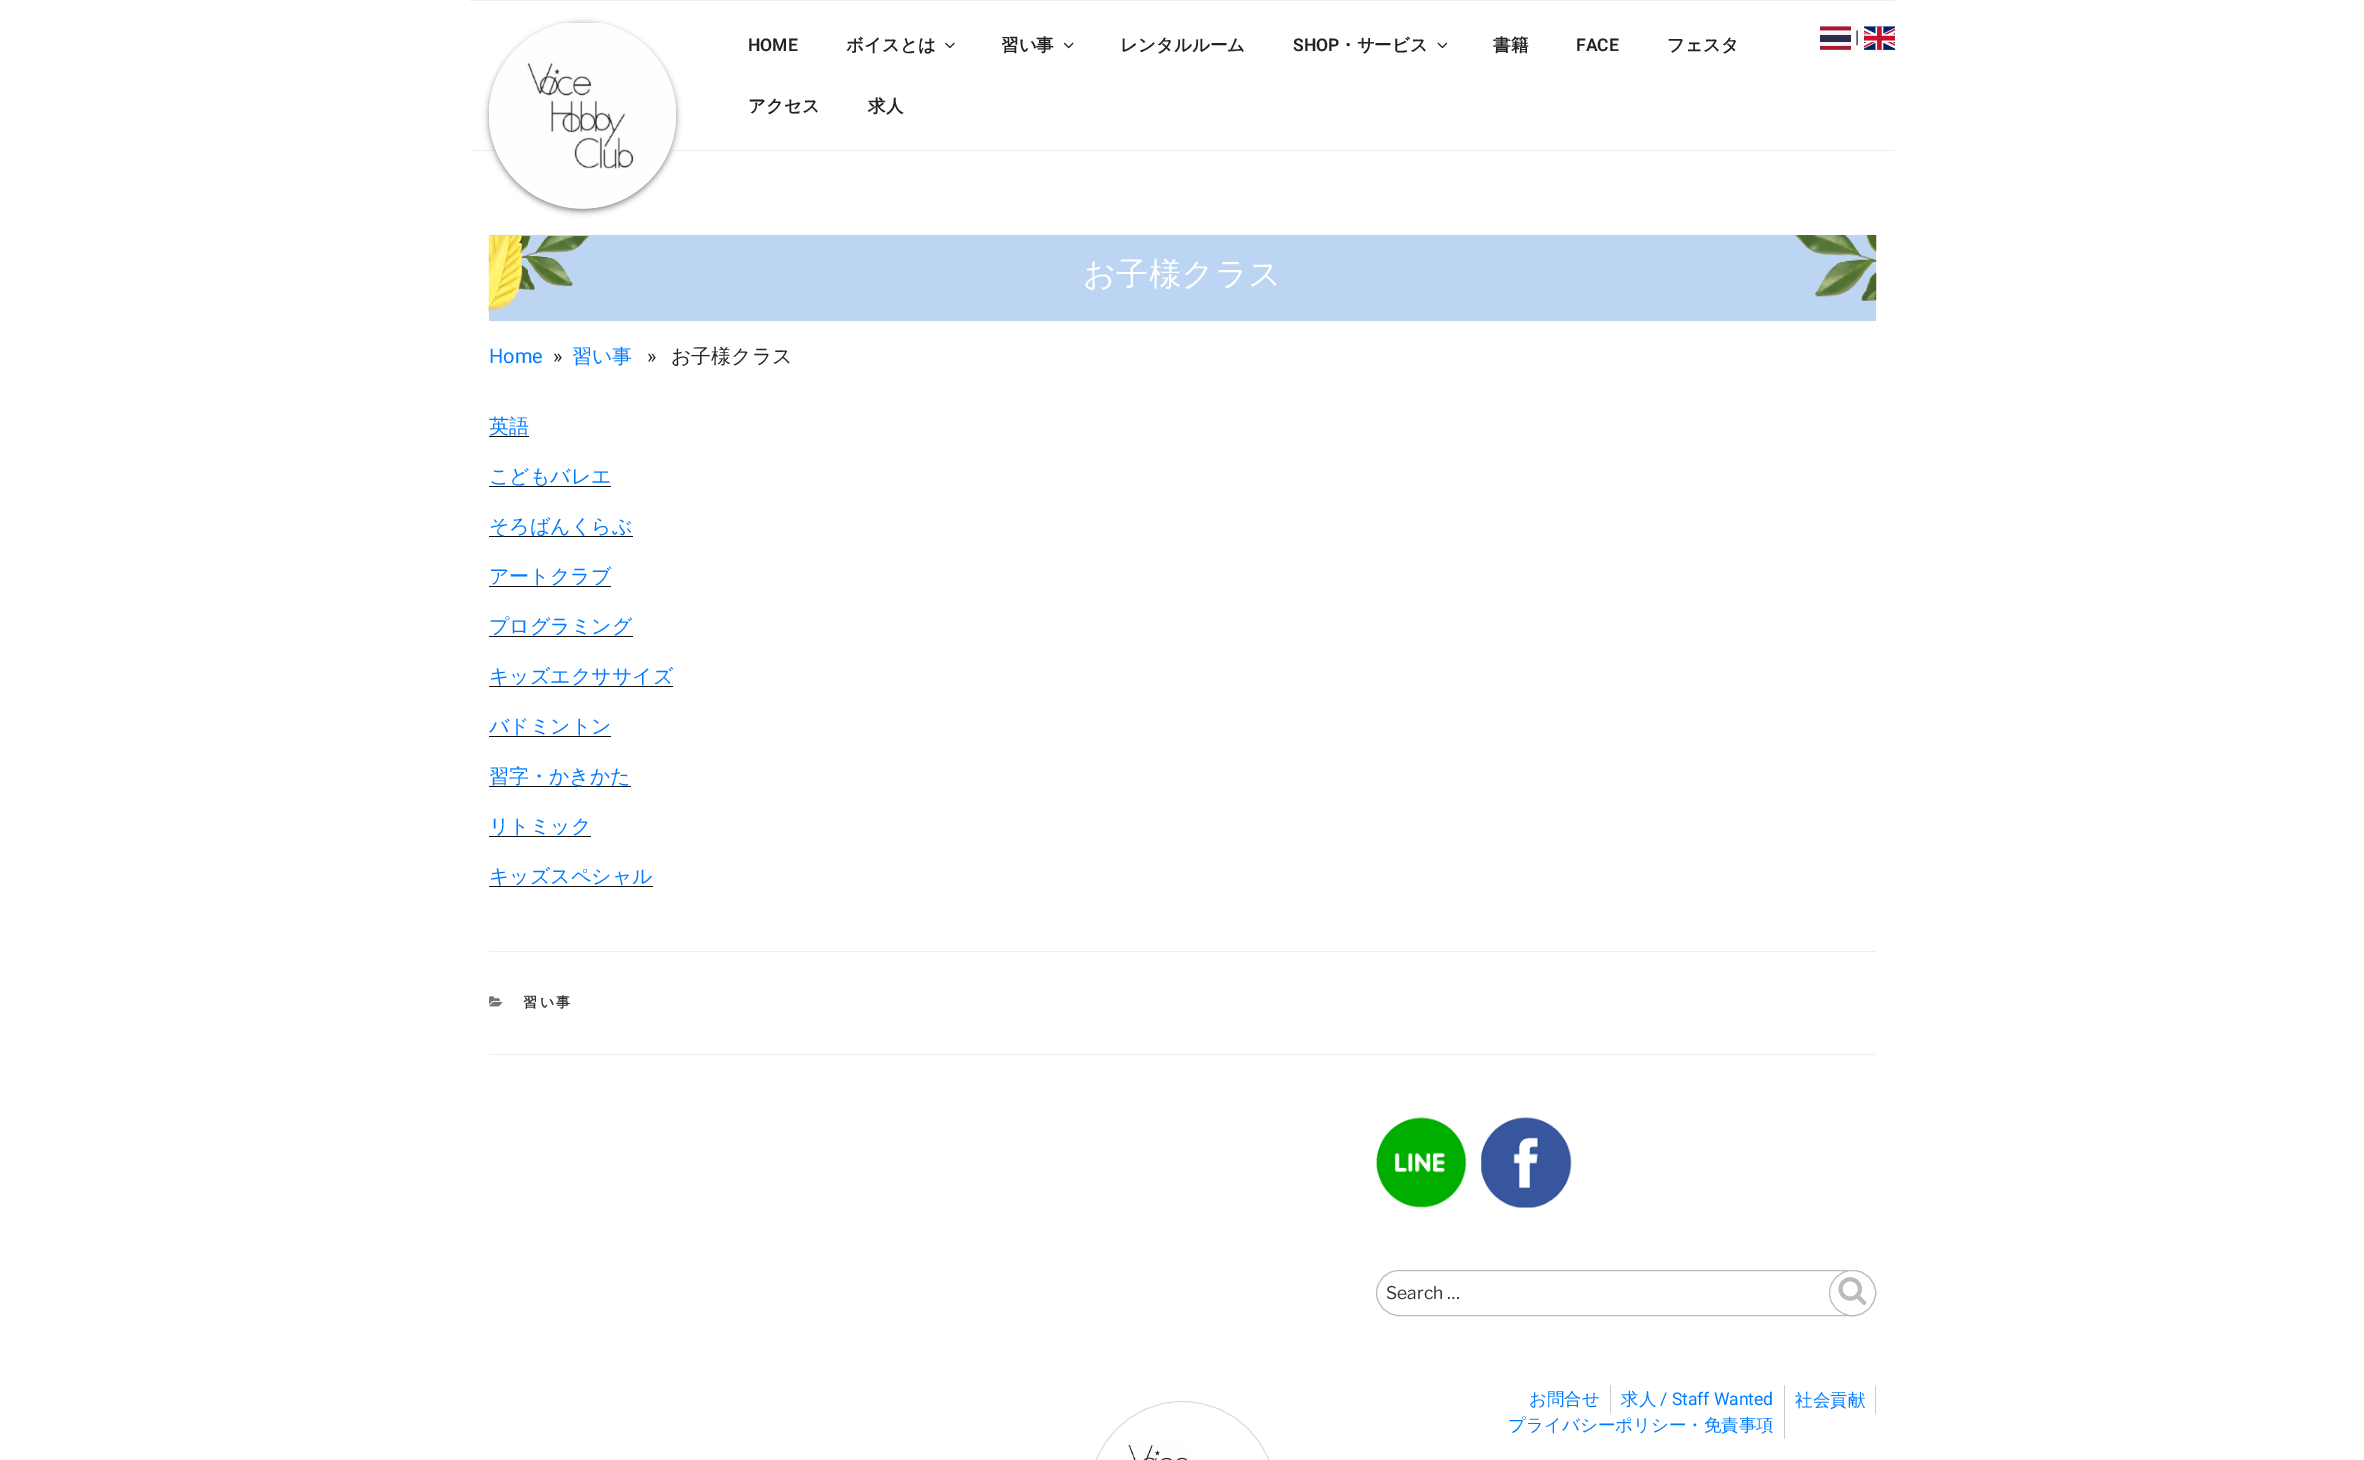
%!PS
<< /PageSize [2364 1460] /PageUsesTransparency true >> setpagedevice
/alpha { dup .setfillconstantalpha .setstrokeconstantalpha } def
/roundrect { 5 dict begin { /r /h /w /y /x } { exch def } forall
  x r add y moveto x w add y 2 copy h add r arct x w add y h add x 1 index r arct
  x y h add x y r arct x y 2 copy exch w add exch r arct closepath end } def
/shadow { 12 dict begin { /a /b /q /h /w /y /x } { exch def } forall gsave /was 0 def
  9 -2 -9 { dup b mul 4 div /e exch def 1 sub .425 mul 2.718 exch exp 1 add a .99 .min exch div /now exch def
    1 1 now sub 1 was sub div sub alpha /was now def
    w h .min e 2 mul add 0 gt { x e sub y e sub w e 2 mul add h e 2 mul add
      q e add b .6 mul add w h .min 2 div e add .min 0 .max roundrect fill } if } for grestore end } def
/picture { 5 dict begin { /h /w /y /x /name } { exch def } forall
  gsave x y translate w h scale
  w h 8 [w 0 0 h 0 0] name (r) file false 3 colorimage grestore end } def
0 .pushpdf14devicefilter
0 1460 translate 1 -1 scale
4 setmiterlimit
1 setgray
0 0 2364 1460 rectfill
0.933 setgray
470 0 1425 1 rectfill
470 150 1425 1 rectfill
0.553 0.514 0.514 setrgbcolor
489 24 187 187 93.5 3 1 shadow
(img1.rgb) 489 23 187 186 picture
/Roboto-SemiBold [17.5 0 0 -17.5 0 0] selectfont
0.133 setgray
748 51 moveto (HOME) show
/WenQuanYiZenHei-Bold [17.5 0 0 -17.5 0 0] selectfont
846 51 moveto (ボイスとは) show
(img2.rgb) 945 42 10 7 picture
1001 51 moveto (習い事) show
(img3.rgb) 1063 42 11 7 picture
1120 51 moveto (レンタルルーム) show
/Roboto-SemiBold [17.5 0 0 -17.5 0 0] selectfont
1293 51 moveto (SHOP) show
/WenQuanYiZenHei-Bold [17.5 0 0 -17.5 0 0] selectfont
1339 51 moveto (・サービス) show
(img4.rgb) 1437 42 11 7 picture
1493 51 moveto (書籍) show
/Roboto-SemiBold [17.5 0 0 -17.5 0 0] selectfont
1576 51 moveto (FACE) show
/WenQuanYiZenHei-Bold [17.5 0 0 -17.5 0 0] selectfont
1667 51 moveto (フェスタ) show
748 112 moveto (アクセス) show
868 112 moveto (求人) show
(img5.rgb) 1820 26 31 24 picture
/Roboto-Regular [17.5 0 0 -17.5 0 0] selectfont
0.129 0.145 0.161 setrgbcolor
1855 43 moveto (|) show
(img6.rgb) 1864 26 31 24 picture
0.737 0.835 0.953 setrgbcolor
489 235 1387 86 rectfill
(img7.rgb) 488 235 102 77 picture
/WenQuanYiZenHei-Medium [32.5 0 0 -32.5 0 0] selectfont
1 setgray
1083 285 moveto (お子様クラス) show
(img8.rgb) 1794 235 83 67 picture
/Roboto-Regular [20 0 0 -20 0 0] selectfont
0 0.482 1 setrgbcolor
489 363 moveto (Home) show
0.129 0.145 0.161 setrgbcolor
553 363 moveto (») show
/WenQuanYiZenHei-Medium [20 0 0 -20 0 0] selectfont
0 0.482 1 setrgbcolor
572 363 moveto (習い事) show
/Roboto-Regular [20 0 0 -20 0 0] selectfont
0.129 0.145 0.161 setrgbcolor
647 363 moveto (») show
/WenQuanYiZenHei-Medium [20 0 0 -20 0 0] selectfont
671 363 moveto (お子様クラス) show
0 0.482 1 setrgbcolor
489 433 moveto (英語) show
0.059 setgray
489 436 40 1 rectfill
0 0.482 1 setrgbcolor
489 483 moveto (こどもバレエ) show
0.059 setgray
489 486 122 1 rectfill
489 536 144 1 rectfill
0 0.482 1 setrgbcolor
489 533 moveto (そろばんくらぶ) show
489 583 moveto (アートクラブ) show
0.059 setgray
489 586 122 1 rectfill
0 0.482 1 setrgbcolor
489 633 moveto (プログラミング) show
0.059 setgray
489 636 144 1 rectfill
0 0.482 1 setrgbcolor
489 683 moveto (キッズエクササイズ) show
0.059 setgray
489 686 184 1 rectfill
0 0.482 1 setrgbcolor
489 733 moveto (バドミントン) show
0.059 setgray
489 736 122 1 rectfill
489 786 142 1 rectfill
0 0.482 1 setrgbcolor
489 783 moveto (習字・かきかた) show
489 833 moveto (リトミック) show
0.059 setgray
489 836 102 1 rectfill
0 0.482 1 setrgbcolor
489 883 moveto (キッズスペシャル) show
0.059 setgray
489 886 164 1 rectfill
0.933 setgray
489 951 1387 1 rectfill
489 1054 1387 1 rectfill
(img9.rgb) 489 996 14 11 picture
/WenQuanYiZenHei-Bold [14 0 0 -14 0 0] selectfont
0.2 setgray
523 1007 moveto 2.5 0 (習い事) ashow
(img10.rgb) 1376 1117 91 91 picture
(img11.rgb) 1481 1117 91 91 picture
0.733 setgray
1376.5 1270.5 499 45 22.5 roundrect stroke
/LibreFranklin-Regular [17.5 0 0 -17.5 0 0] selectfont
0.2 setgray
1386 1299 moveto (Search …) show
1 setgray
1829.5 1270.5 46 45 22.5 roundrect gsave fill grestore
0.733 setgray
stroke
(img12.rgb) 1838 1277 29 28 picture
0.8 setgray
1610 1385 1 28 rectfill
/WenQuanYiZenHei-Medium [17.5 0 0 -17.5 0 0] selectfont
0 0.482 1 setrgbcolor
1529 1405 moveto (お問合せ) show
0.8 setgray
1784 1385 1 54 rectfill
0 0.482 1 setrgbcolor
1621 1405 moveto (求人) show
/Roboto-Regular [17.5 0 0 -17.5 0 0] selectfont
1660 1405 moveto (/ Staff Wanted) show
0.8 setgray
1875 1386 1 28 rectfill
/WenQuanYiZenHei-Medium [17.5 0 0 -17.5 0 0] selectfont
0 0.482 1 setrgbcolor
1795 1406 moveto (社会貢献) show
1508 1431 moveto (プライバシーポリシー・免責事項) show
0.867 setgray
1089.5 1401.5 186 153 93 roundrect stroke
(img13.rgb) 1128 1443 61 17 picture
.poppdf14devicefilter showpage
